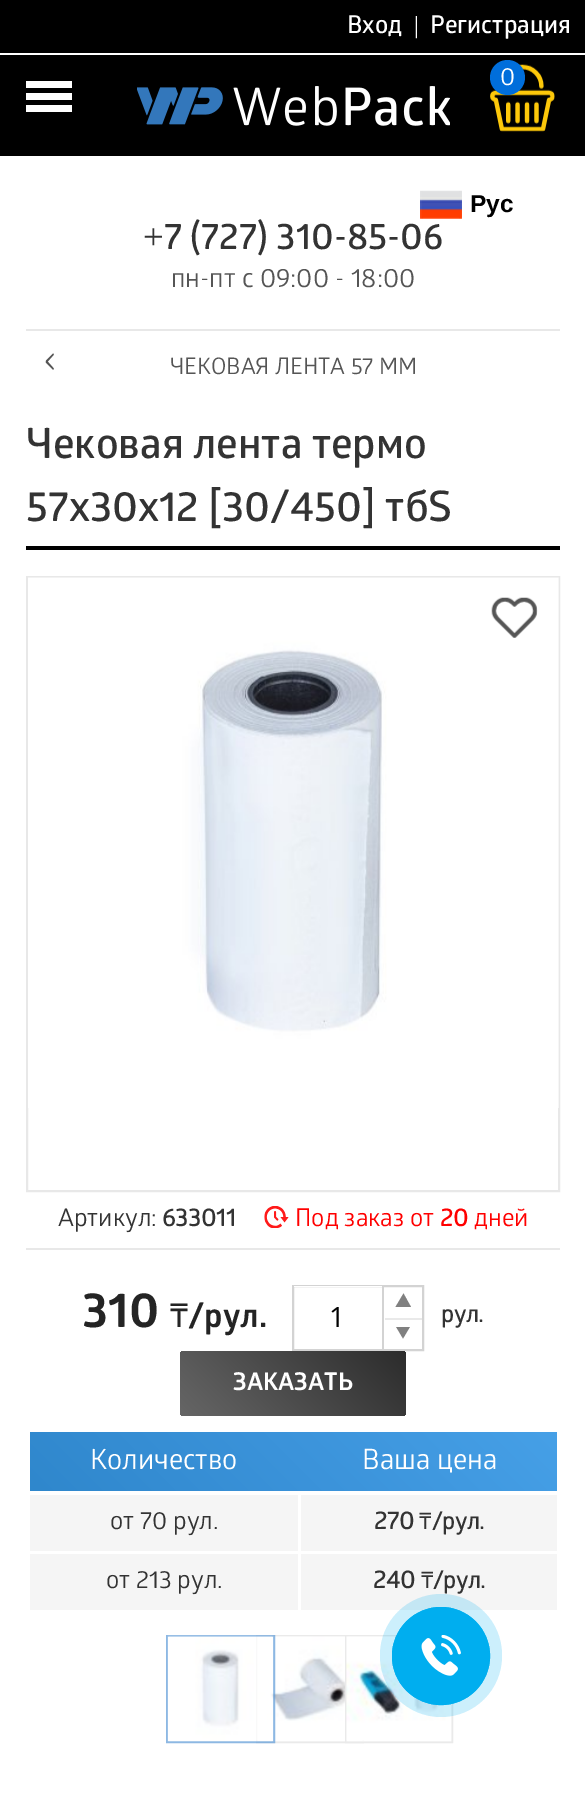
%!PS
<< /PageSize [585 1800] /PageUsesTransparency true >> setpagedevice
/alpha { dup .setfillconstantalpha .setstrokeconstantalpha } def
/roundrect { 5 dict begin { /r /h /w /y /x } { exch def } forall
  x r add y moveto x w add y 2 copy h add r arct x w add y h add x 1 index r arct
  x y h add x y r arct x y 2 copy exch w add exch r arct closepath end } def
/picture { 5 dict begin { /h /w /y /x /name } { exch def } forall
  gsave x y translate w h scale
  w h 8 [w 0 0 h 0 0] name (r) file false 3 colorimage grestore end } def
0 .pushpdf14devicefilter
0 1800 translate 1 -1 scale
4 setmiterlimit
1 setgray
0 0 585 1800 rectfill
0 setgray
0 0 585 156 rectfill
1 setgray
0 53 585 2 rectfill
/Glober-Bold [24.5 0 0 -24.5 0 0] selectfont
347 33 moveto (Вход) show
/LiberationSerif-Regular [24.5 0 0 -24.5 0 0] selectfont
414 33 moveto (|) show
/Glober-Bold [24.5 0 0 -24.5 0 0] selectfont
430 33 moveto (Регистрация) show
(img1.rgb) 490 64 65 68 picture
0 0.431 0.859 setrgbcolor
newpath 507.5 77.5 17.5 0 360 arc closepath fill
/Glober-Regular [24.5 0 0 -24.5 0 0] selectfont
1 setgray
500 85 moveto (0) show
(img2.rgb) 137 86 313 40 picture
26 81 46 7 rectfill
26 93 46 7 rectfill
26 105 46 7 rectfill
(img3.rgb) 420 190 42 29 picture
/LiberationSans-Bold [24.5 0 0 -24.5 0 0] selectfont
0 setgray
470 212 moveto (Рус) show
/LiberationSerif-Regular [36.75 0 0 -36.75 0 0] selectfont
0.2 setgray
143 249 moveto (+) show
/Glober-Bold [36.75 0 0 -36.75 0 0] selectfont
164 249 moveto (7 \(727\) 310-85-06) show
/Glober-Regular [26.25 0 0 -26.25 0 0] selectfont
0.333 setgray
171 287 moveto (пн-пт с 09:00 - 18:00) show
0.91 setgray
26 329 534 2 rectfill
/Glober-Regular [35 0 0 -35 0 0] selectfont
0.333 setgray
44 371 moveto (‹) show
/Glober-Regular [22.75 0 0 -22.75 0 0] selectfont
170 374 moveto (ЧЕКОВАЯ ЛЕНТА 57 ММ) show
0 setgray
26 546 534 4 rectfill
/Glober-SemiBold [42 0 0 -42 0 0] selectfont
0.2 setgray
26 458 moveto (Чековая лента термо) show
26 521 moveto (57х30х12 [30/450] тбS) show
0.91 setgray
2 setlinewidth
27 577 532 614 rectstroke
(img4.rgb) 28 577 531 531 picture
(img5.rgb) 558 577 1 531 picture
(img6.rgb) 491 597 47 41 picture
26 1248 534 2 rectfill
/Glober-Regular [24.5 0 0 -24.5 0 0] selectfont
0.2 setgray
58 1226 moveto (Артикул:) show
/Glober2-Bold [24.5 0 0 -24.5 0 0] selectfont
162 1226 moveto (633011) show
(img7.rgb) 264 1206 25 22 picture
/Glober-Regular [24.5 0 0 -24.5 0 0] selectfont
1 0 0 setrgbcolor
295 1226 moveto (Под заказ от) show
/Glober2-Bold [24.5 0 0 -24.5 0 0] selectfont
440 1226 moveto (20) show
/Glober-Regular [24.5 0 0 -24.5 0 0] selectfont
474 1226 moveto (дней) show
/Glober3-Bold [49 0 0 -49 0 0] selectfont
0.141 setgray
82 1327 moveto (310) show
/NotoSans-Regular [33 0 0 -33 0 0] selectfont
170 1327 moveto (₸) show
/Glober3-Bold [33 0 0 -33 0 0] selectfont
188 1327 moveto (/рул.) show
0.827 setgray
293 1286 130 64 rectstroke
1 setgray
294 1286 88 1 rectfill
0.827 setgray
382 1286 2 63 rectfill
/OpenSans-Regular [28 0 0 -28 0 0] selectfont
0 setgray
329 1327 moveto (1) show
0.502 setgray
newpath 411 1307 moveto 395.5 1307 lineto 403.5 1293.5 lineto closepath eofill
0.914 setgray
385 1318 37 2 rectfill
gsave
396 1327 15 14 rectclip
0.502 setgray
newpath 395 1325 moveto 411 1325 lineto 403 1338.5 lineto closepath eofill
grestore
/Glober2-Bold [22.75 0 0 -22.75 0 0] selectfont
0.2 setgray
441 1322 moveto (рул.) show
gsave 180 1351 226 65 4 roundrect clip newpath
<< /ShadingType 2 /ColorSpace /DeviceRGB /Coords [35 1561 326 1271] /Extend [true true] /Function << /FunctionType 3 /Domain [0 1] /Functions [<< /FunctionType 2 /Domain [0 1] /C0 [0 0 0] /C1 [0.4 0.4 0.4] /N 1 >> << /FunctionType 2 /Domain [0 1] /C0 [0.4 0.4 0.4] /C1 [0.173 0.173 0.173] /N 1 >>] /Bounds [0.5] /Encode [0 1 0 1] >> >> shfill grestore
/Glober3-Bold [24.5 0 0 -24.5 0 0] selectfont
1 setgray
233 1390 moveto (ЗАКАЗАТЬ) show
gsave newpath 30 1432 moveto 557 1432 lineto 557 1491 lineto 30 1491 lineto closepath clip newpath
<< /ShadingType 2 /ColorSpace /DeviceRGB /Coords [-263 1784 323 1198] /Extend [true true] /Function << /FunctionType 3 /Domain [0 1] /Functions [<< /FunctionType 2 /Domain [0 1] /C0 [0.275 0.627 0.906] /C1 [0.184 0.529 0.8] /N 1 >> << /FunctionType 2 /Domain [0 1] /C0 [0.184 0.529 0.8] /C1 [0.275 0.627 0.906] /N 1 >>] /Bounds [0.5] /Encode [0 1 0 1] >> >> shfill grestore
/Glober-Regular [28 0 0 -28 0 0] selectfont
90 1469 moveto (Количество) show
362 1469 moveto (Ваша цена) show
0.961 setgray
30 1495 268 56 rectfill
/Glober-Regular [24.5 0 0 -24.5 0 0] selectfont
0.2 setgray
110 1529 moveto (от 70 рул.) show
0.961 setgray
301 1495 256 56 rectfill
/Glober2-Bold [24.5 0 0 -24.5 0 0] selectfont
0.2 setgray
374 1529 moveto (270) show
/NotoSans-Regular [22.75 0 0 -22.75 0 0] selectfont
419 1529 moveto (₸) show
/Glober2-Bold [22.75 0 0 -22.75 0 0] selectfont
432 1529 moveto (/рул.) show
0.961 setgray
30 1554 268 56 rectfill
/Glober-Regular [24.5 0 0 -24.5 0 0] selectfont
0.2 setgray
106 1588 moveto (от 213 рул.) show
0.961 setgray
301 1554 256 56 rectfill
/Glober2-Bold [24.5 0 0 -24.5 0 0] selectfont
0.2 setgray
373 1588 moveto (240) show
/NotoSans-Regular [22.75 0 0 -22.75 0 0] selectfont
421 1588 moveto (₸) show
/Glober2-Bold [22.75 0 0 -22.75 0 0] selectfont
433 1588 moveto (/рул.) show
0.918 setgray
257 1636 106 106 rectstroke
(img9.rgb) 257 1636 106 106 picture
0.7 alpha
0.365 0.604 0.843 setrgbcolor
167 1636 107 106 rectstroke
1 alpha
(img8.rgb) 167 1635 107 107 picture
0.918 setgray
346 1636 106 106 rectstroke
(img10.rgb) 346 1636 106 106 picture
0.2 alpha
0 0.682 0.937 setrgbcolor
380 1594 122 123 61 roundrect fill
1 alpha
1 setlinewidth
newpath 441 1656 48.5 0 360 arc closepath stroke
newpath 441 1656 49 0 360 arc closepath fill
(img11.rgb) 421 1635 40 41 picture
.poppdf14devicefilter showpage
